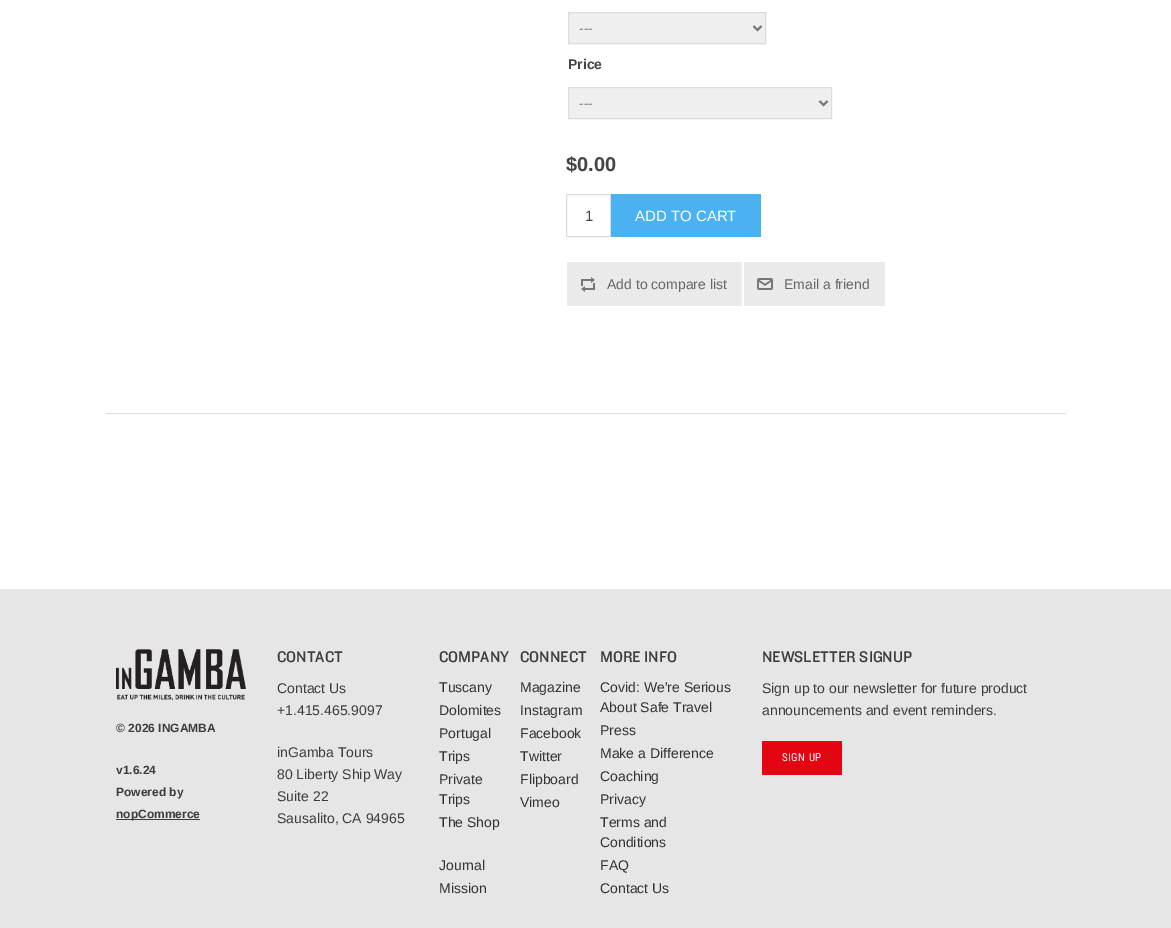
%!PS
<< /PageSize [1171 928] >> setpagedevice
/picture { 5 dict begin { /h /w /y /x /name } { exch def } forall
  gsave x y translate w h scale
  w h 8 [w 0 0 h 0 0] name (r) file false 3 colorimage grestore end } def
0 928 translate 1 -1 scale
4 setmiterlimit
1 setgray
0 0 1171 928 rectfill
0.867 setgray
106 413 960 1 rectfill
0.937 setgray
newpath 568.5 12.5 moveto 765.5 12.5 lineto 765.5 43.5 lineto 568.5 43.5 lineto closepath gsave fill grestore
0.867 setgray
stroke
0.467 setgray
2 setlinewidth
newpath 753.5 26 moveto 757.5 30 lineto 761.5 26 lineto stroke
/LiberationSans-Regular [14 0 0 -14 0 0] selectfont
579 33 moveto (---) show
/LiberationSans-Bold [14 0 0 -14 0 0] selectfont
0.267 setgray
568 69 moveto (Price) show
0.937 setgray
newpath 568.5 87.5 moveto 831.5 87.5 lineto 831.5 118.5 lineto 568.5 118.5 lineto closepath gsave fill grestore
0.867 setgray
1 setlinewidth
stroke
0.467 setgray
2 setlinewidth
newpath 819.5 101 moveto 823.5 105 lineto 827.5 101 lineto stroke
/LiberationSans-Regular [14 0 0 -14 0 0] selectfont
579 108 moveto (---) show
/LiberationSans-Bold [20 0 0 -20 0 0] selectfont
0.267 setgray
566 171 moveto ($0.00) show
0.867 setgray
1 setlinewidth
566.5 194.5 44 42 rectstroke
/LiberationSans-Regular [15 0 0 -15 0 0] selectfont
0.267 setgray
585 221 moveto (1) show
0.29 0.698 0.945 setrgbcolor
611 194 150 43 rectfill
1 setgray
635 221 moveto (ADD TO CART) show
0.918 setgray
567 262 175 44 rectfill
(img1.rgb) 581 277 14 15 picture
/LiberationSans-Regular [14 0 0 -14 0 0] selectfont
0.4 setgray
607 289 moveto (Add to compare list) show
0.918 setgray
744 262 141 44 rectfill
(img2.rgb) 757 278 16 12 picture
0.4 setgray
784 289 moveto (Email a friend) show
0.902 setgray
0 589 1171 339 rectfill
/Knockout-Medium [16 0 0 -16 0 0] selectfont
0.239 setgray
277 662 moveto (CONTACT) show
/LiberationSans-Regular [14 0 0 -14 0 0] selectfont
277 693 moveto (Contact Us) show
277 715 moveto (+1.415.465.9097) show
277 757 moveto (inGamba Tours) show
277 779 moveto (80 Liberty Ship Way) show
277 801 moveto (Suite 22) show
277 823 moveto (Sausalito, CA 94965) show
/Knockout-Medium [16 0 0 -16 0 0] selectfont
439 662 moveto (COMPANY) show
/LiberationSans-Regular [14 0 0 -14 0 0] selectfont
0.2 setgray
439 692 moveto (Tuscany) show
439 715 moveto (Dolomites) show
439 738 moveto (Portugal) show
439 761 moveto (Trips) show
439 784 moveto (Private) show
439 804 moveto (Trips) show
439 827 moveto (The Shop) show
439 870 moveto (Journal) show
439 893 moveto (Mission) show
/Knockout-Medium [16 0 0 -16 0 0] selectfont
0.239 setgray
520 662 moveto (CONNECT) show
/LiberationSans-Regular [14 0 0 -14 0 0] selectfont
0.2 setgray
520 692 moveto (Magazine) show
520 715 moveto (Instagram) show
520 738 moveto (Facebook) show
520 761 moveto (Twitter) show
520 784 moveto (Flipboard) show
520 807 moveto (Vimeo) show
/Knockout-Medium [16 0 0 -16 0 0] selectfont
0.239 setgray
600 662 moveto (MORE INFO) show
/LiberationSans-Regular [14 0 0 -14 0 0] selectfont
0.2 setgray
600 692 moveto (Covid: We're Serious) show
600 712 moveto (About Safe Travel) show
600 735 moveto (Press) show
600 758 moveto (Make a Difference) show
600 781 moveto (Coaching) show
600 804 moveto (Privacy) show
600 827 moveto (Terms and) show
600 847 moveto (Conditions) show
600 870 moveto (FAQ) show
600 893 moveto (Contact Us) show
/Knockout-Medium [16 0 0 -16 0 0] selectfont
0.239 setgray
762 662 moveto (NEWSLETTER SIGNUP) show
/LiberationSans-Regular [14 0 0 -14 0 0] selectfont
762 693 moveto (Sign up to our newsletter for future product) show
762 715 moveto (announcements and event reminders.) show
0.898 0.016 0.067 setrgbcolor
762 741 80 34 rectfill
/RobotoCondensed-Regular [11 0 0 -11 0 0] selectfont
1 setgray
782 761 moveto 0.5 0 (SIGN UP) ashow
(img3.rgb) 116 649 130 52 picture
/LiberationSans-Bold [12 0 0 -12 0 0] selectfont
0.239 setgray
116 732 moveto (© 2026 INGAMBA) show
116 774 moveto (v1.6.24) show
116 796 moveto (Powered by) show
116 819 84 1 rectfill
116 818 moveto (nopCommerce) show
showpage
